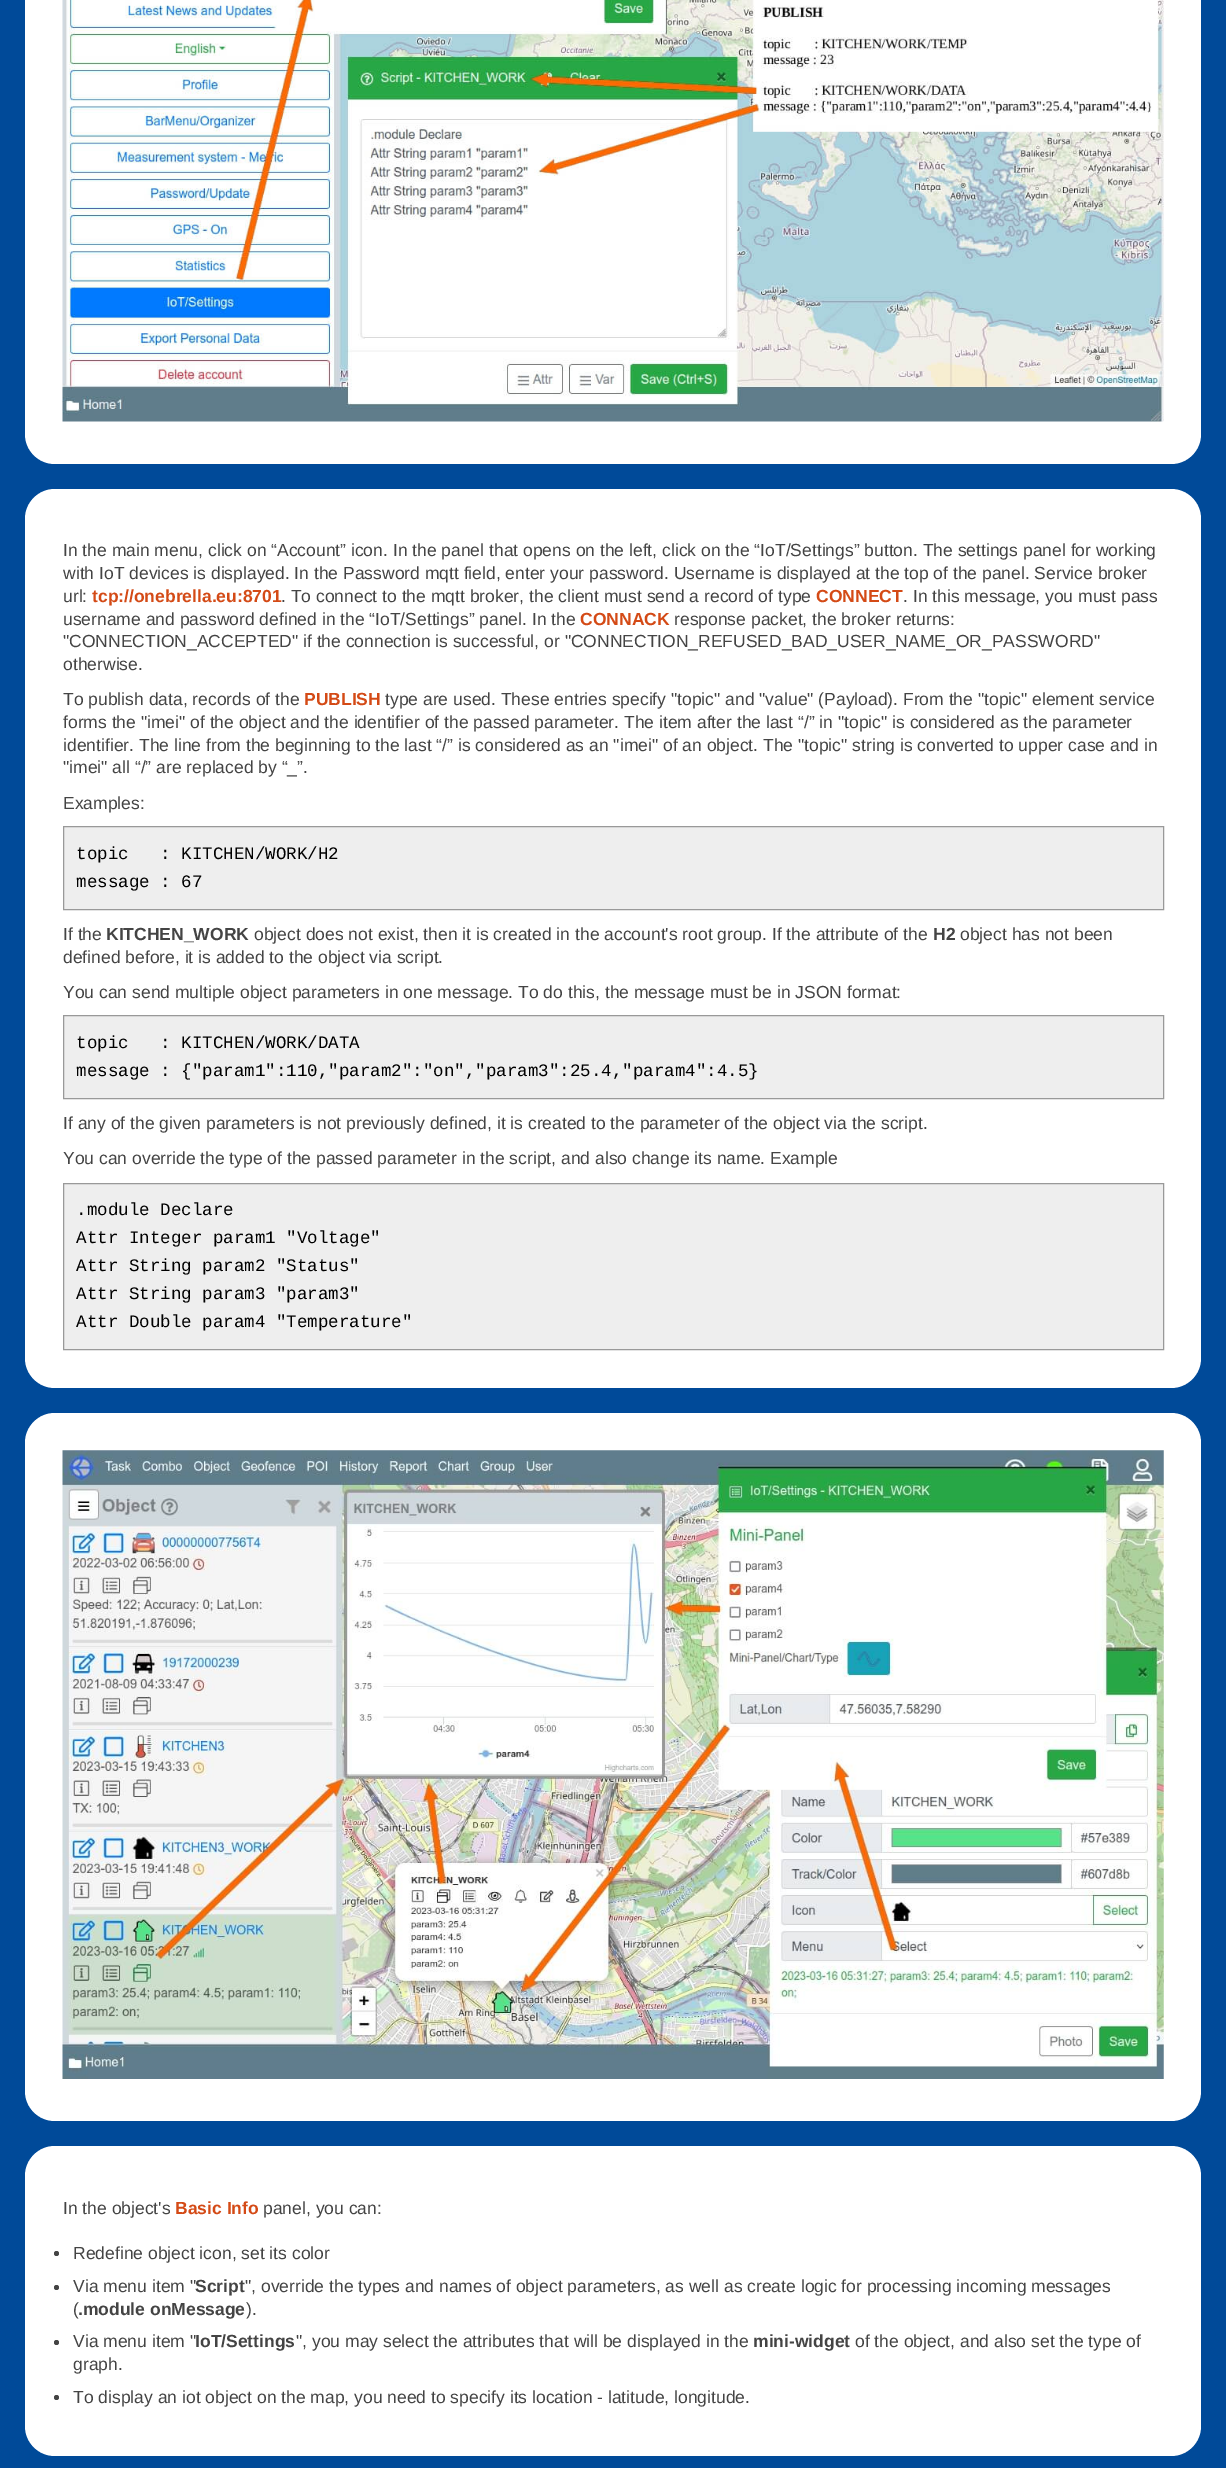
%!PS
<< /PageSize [1226 2468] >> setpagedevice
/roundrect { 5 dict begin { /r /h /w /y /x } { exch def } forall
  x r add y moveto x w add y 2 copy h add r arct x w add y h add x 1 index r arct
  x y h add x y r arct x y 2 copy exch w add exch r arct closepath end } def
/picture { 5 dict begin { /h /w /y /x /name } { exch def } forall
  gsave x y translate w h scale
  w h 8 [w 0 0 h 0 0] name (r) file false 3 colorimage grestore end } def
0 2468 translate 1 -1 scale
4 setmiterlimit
0 0.29 0.6 setrgbcolor
0 0 1226 2468 rectfill
1 setgray
25 -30 1176 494 30 roundrect fill
(img1.rgb) 62 0 1102 422 picture
25 489 1176 899 30 roundrect fill
/LiberationSans-Regular [17.5 0 0 -17.5 0 0] selectfont
0.267 setgray
63 556 moveto (In the main menu, click on “Account” icon. In the panel that opens on the left, click on the “IoT/Settings” button. The settings panel for working) show
63 579 moveto (with IoT devices is displayed. In the Password mqtt field, enter your password. Username is displayed at the top of the panel. Service broker) show
63 602 moveto (url:) show
/LiberationSans-Bold [17.5 0 0 -17.5 0 0] selectfont
0.831 0.29 0.086 setrgbcolor
92 602 moveto (tcp://onebrella.eu:8701) show
/LiberationSans-Regular [17.5 0 0 -17.5 0 0] selectfont
0.267 setgray
281 602 moveto (. To connect to the mqtt broker, the client must send a record of type) show
/LiberationSans-Bold [17.5 0 0 -17.5 0 0] selectfont
0.831 0.29 0.086 setrgbcolor
816 602 moveto (CONNECT) show
/LiberationSans-Regular [17.5 0 0 -17.5 0 0] selectfont
0.267 setgray
903 602 moveto (. In this message, you must pass) show
63 625 moveto (username and password defined in the “IoT/Settings” panel. In the) show
/LiberationSans-Bold [17.5 0 0 -17.5 0 0] selectfont
0.831 0.29 0.086 setrgbcolor
580 625 moveto (CONNACK) show
/LiberationSans-Regular [17.5 0 0 -17.5 0 0] selectfont
0.267 setgray
674 625 moveto (response packet, the broker returns:) show
63 647 moveto ("CONNECTION_ACCEPTED" if the connection is successful, or "CONNECTION_REFUSED_BAD_USER_NAME_OR_PASSWORD") show
63 670 moveto (otherwise.) show
63 705 moveto (To publish data, records of the) show
/LiberationSans-Bold [17.5 0 0 -17.5 0 0] selectfont
0.831 0.29 0.086 setrgbcolor
304 705 moveto (PUBLISH) show
/LiberationSans-Regular [17.5 0 0 -17.5 0 0] selectfont
0.267 setgray
385 705 moveto (type are used. These entries specify "topic" and "value" \(Payload\). From the "topic" element service) show
63 728 moveto (forms the "imei" of the object and the identifier of the passed parameter. The item after the last “/” in "topic" is considered as the parameter) show
63 751 moveto (identifier. The line from the beginning to the last “/” is considered as an "imei" of an object. The "topic" string is converted to upper case and in) show
63 773 moveto ("imei" all “/” are replaced by “_”.) show
63 809 moveto (Examples:) show
0.933 setgray
newpath 63.5 826.5 moveto 1163.5 826.5 lineto 1163.5 909.5 lineto 63.5 909.5 lineto closepath gsave fill grestore
0.6 setgray
stroke
/LiberationMono-Regular [17.5 0 0 -17.5 0 0] selectfont
0 setgray
76 859 moveto (topic   : KITCHEN/WORK/H2) show
76 887 moveto (message : 67) show
/LiberationSans-Regular [17.5 0 0 -17.5 0 0] selectfont
0.267 setgray
63 940 moveto (If the) show
/LiberationSans-Bold [17.5 0 0 -17.5 0 0] selectfont
106 940 moveto (KITCHEN_WORK) show
/LiberationSans-Regular [17.5 0 0 -17.5 0 0] selectfont
254 940 moveto (object does not exist, then it is created in the account's root group. If the attribute of the) show
/LiberationSans-Bold [17.5 0 0 -17.5 0 0] selectfont
933 940 moveto (H2) show
/LiberationSans-Regular [17.5 0 0 -17.5 0 0] selectfont
960 940 moveto (object has not been) show
63 963 moveto (defined before, it is added to the object via script.) show
63 998 moveto (You can send multiple object parameters in one message. To do this, the message must be in JSON format:) show
0.933 setgray
newpath 63.5 1015.5 moveto 1163.5 1015.5 lineto 1163.5 1098.5 lineto 63.5 1098.5 lineto closepath gsave fill grestore
0.6 setgray
stroke
/LiberationMono-Regular [17.5 0 0 -17.5 0 0] selectfont
0 setgray
76 1048 moveto (topic   : KITCHEN/WORK/DATA) show
76 1076 moveto (message : {"param1":110,"param2":"on","param3":25.4,"param4":4.5}) show
/LiberationSans-Regular [17.5 0 0 -17.5 0 0] selectfont
0.267 setgray
63 1129 moveto (If any of the given parameters is not previously defined, it is created to the parameter of the object via the script.) show
63 1164 moveto (You can override the type of the passed parameter in the script, and also change its name. Example) show
0.933 setgray
newpath 63.5 1183.5 moveto 1163.5 1183.5 lineto 1163.5 1349.5 lineto 63.5 1349.5 lineto closepath gsave fill grestore
0.6 setgray
stroke
/LiberationMono-Regular [17.5 0 0 -17.5 0 0] selectfont
0 setgray
76 1215 moveto (.module Declare) show
76 1243 moveto (Attr Integer param1 "Voltage") show
76 1271 moveto (Attr String param2 "Status") show
76 1299 moveto (Attr String param3 "param3") show
76 1327 moveto (Attr Double param4 "Temperature") show
1 setgray
25 1413 1176 708 30 roundrect fill
(img2.rgb) 62 1450 1102 629 picture
25 2146 1176 310 30 roundrect fill
/LiberationSans-Regular [17.5 0 0 -17.5 0 0] selectfont
0.267 setgray
63 2214 moveto (In the object's) show
/LiberationSans-Bold [17.5 0 0 -17.5 0 0] selectfont
0.831 0.29 0.086 setrgbcolor
175 2214 moveto (Basic Info) show
/LiberationSans-Regular [17.5 0 0 -17.5 0 0] selectfont
0.267 setgray
263 2214 moveto (panel, you can:) show
newpath 56.5 2253.5 2.5 0 360 arc closepath fill
73 2259 moveto (Redefine object icon, set its color) show
newpath 56.5 2287.5 2.5 0 360 arc closepath fill
73 2292 moveto (Via menu item ") show
/LiberationSans-Bold [17.5 0 0 -17.5 0 0] selectfont
195 2292 moveto (Script) show
/LiberationSans-Regular [17.5 0 0 -17.5 0 0] selectfont
245 2292 moveto (", override the types and names of object parameters, as well as create logic for processing incoming messages) show
73 2315 moveto (\() show
/LiberationSans-Bold [17.5 0 0 -17.5 0 0] selectfont
78 2315 moveto (.module onMessage) show
/LiberationSans-Regular [17.5 0 0 -17.5 0 0] selectfont
246 2315 moveto (\).) show
newpath 56.5 2342.5 2.5 0 360 arc closepath fill
73 2347 moveto (Via menu item ") show
/LiberationSans-Bold [17.5 0 0 -17.5 0 0] selectfont
195 2347 moveto (IoT/Settings) show
/LiberationSans-Regular [17.5 0 0 -17.5 0 0] selectfont
296 2347 moveto (", you may select the attributes that will be displayed in the) show
/LiberationSans-Bold [17.5 0 0 -17.5 0 0] selectfont
753 2347 moveto (mini-widget) show
/LiberationSans-Regular [17.5 0 0 -17.5 0 0] selectfont
855 2347 moveto (of the object, and also set the type of) show
73 2370 moveto (graph.) show
newpath 56.5 2397.5 2.5 0 360 arc closepath fill
73 2403 moveto (To display an iot object on the map, you need to specify its location - latitude, longitude.) show
showpage
